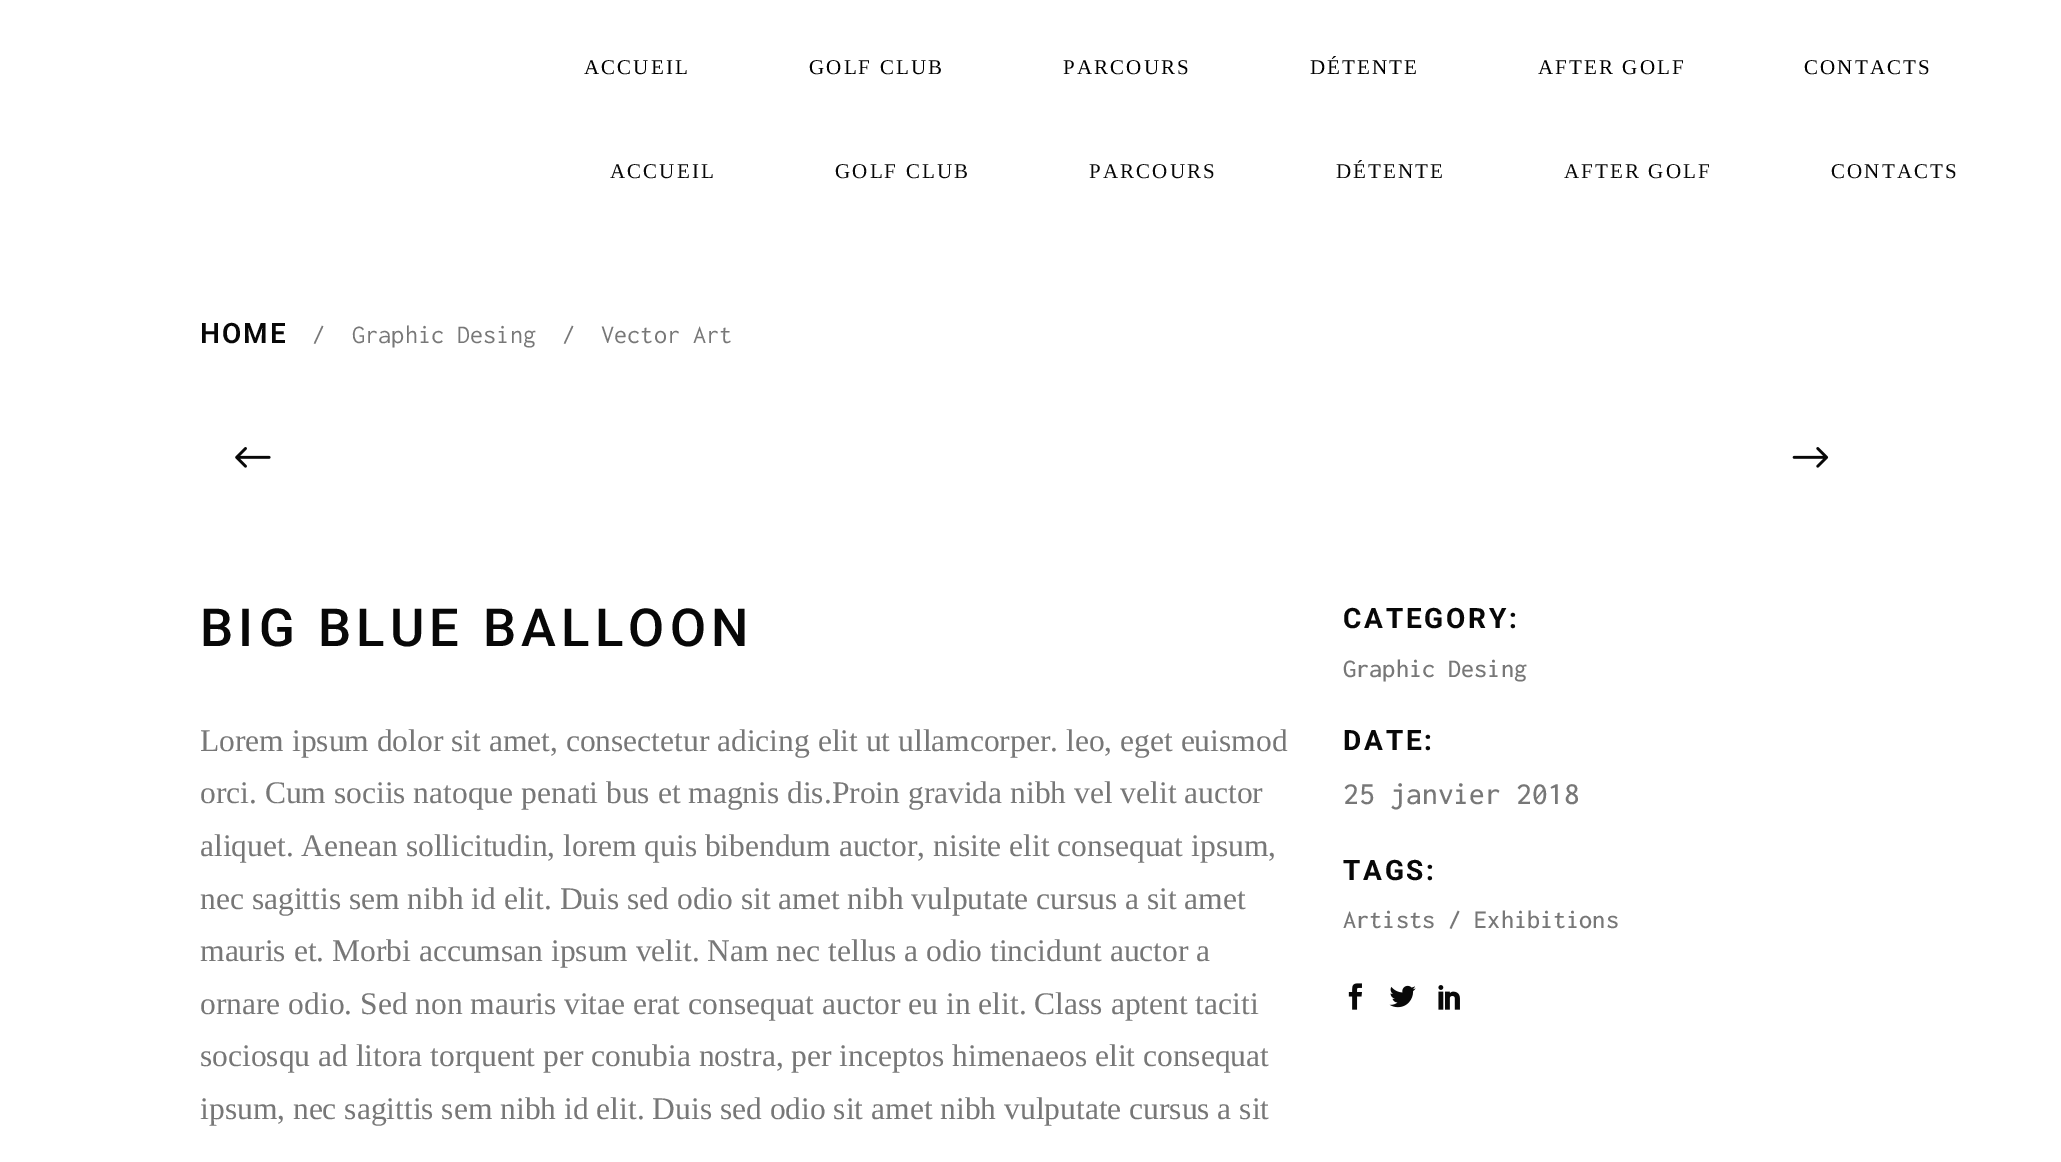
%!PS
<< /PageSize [2061 1162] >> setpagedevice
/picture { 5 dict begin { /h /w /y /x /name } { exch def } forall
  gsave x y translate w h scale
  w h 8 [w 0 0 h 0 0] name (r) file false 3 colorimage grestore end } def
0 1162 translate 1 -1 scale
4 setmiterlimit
1 setgray
0 0 2061 1162 rectfill
/LiberationSerif-Regular [21 0 0 -21 0 0] selectfont
0 setgray
584 74 moveto 2.1 0 (ACCUEIL) ashow
809 74 moveto 2.1 0 (GOLF CLUB) ashow
1063 74 moveto 2.1 0 (PARCOURS) ashow
1310 74 moveto 2.1 0 (DÉTENTE) ashow
1538 74 moveto 2.1 0 (AFTER GOLF) ashow
1804 74 moveto 2.1 0 (CONTACTS) ashow
0.031 setgray
610 178 moveto 2.1 0 (ACCUEIL) ashow
835 178 moveto 2.1 0 (GOLF CLUB) ashow
1089 178 moveto 2.1 0 (PARCOURS) ashow
1336 178 moveto 2.1 0 (DÉTENTE) ashow
1564 178 moveto 2.1 0 (AFTER GOLF) ashow
1831 178 moveto 2.1 0 (CONTACTS) ashow
/Roboto-SemiBold [28 0 0 -28 0 0] selectfont
200 343 moveto 2 0 (HOME) ashow
/Inconsolata-Regular [26.25 0 0 -26.25 0 0] selectfont
0.467 setgray
312 343 moveto (/) show
352 343 moveto (Graphic Desing) show
562 343 moveto (/) show
601 343 moveto (Vector Art) show
(img1.rgb) 235 447 36 21 picture
(img2.rgb) 1792 447 37 21 picture
/Roboto-Medium [52.5 0 0 -52.5 0 0] selectfont
0.031 setgray
200 646 moveto 5.25 0 (BIG BLUE BALLOON) ashow
/LiberationSerif-Regular [31.5 0 0 -31.5 0 0] selectfont
0.467 setgray
200 751 moveto (Lorem ipsum dolor sit amet, consectetur adicing elit ut ullamcorper. leo, eget euismod) show
200 803 moveto (orci. Cum sociis natoque penati bus et magnis dis.Proin gravida nibh vel velit auctor) show
200 856 moveto (aliquet. Aenean sollicitudin, lorem quis bibendum auctor, nisite elit consequat ipsum,) show
200 909 moveto (nec sagittis sem nibh id elit. Duis sed odio sit amet nibh vulputate cursus a sit amet) show
200 961 moveto (mauris et. Morbi accumsan ipsum velit. Nam nec tellus a odio tincidunt auctor a) show
200 1014 moveto (ornare odio. Sed non mauris vitae erat consequat auctor eu in elit. Class aptent taciti) show
200 1066 moveto (sociosqu ad litora torquent per conubia nostra, per inceptos himenaeos elit consequat) show
200 1119 moveto (ipsum, nec sagittis sem nibh id elit. Duis sed odio sit amet nibh vulputate cursus a sit) show
/Roboto-Bold [28 0 0 -28 0 0] selectfont
0.031 setgray
1343 628 moveto 2.75 0 (CATEGORY:) ashow
/Inconsolata-Medium [26.25 0 0 -26.25 0 0] selectfont
0.467 setgray
1343 677 moveto (Graphic Desing) show
/Roboto-Bold [28 0 0 -28 0 0] selectfont
0.031 setgray
1343 750 moveto 2.75 0 (DATE:) ashow
/Inconsolata-Medium [31.5 0 0 -31.5 0 0] selectfont
0.467 setgray
1343 804 moveto (25 janvier 2018) show
/Roboto-Bold [28 0 0 -28 0 0] selectfont
0.031 setgray
1343 880 moveto 2.75 0 (TAGS:) ashow
/Inconsolata-Medium [26.25 0 0 -26.25 0 0] selectfont
0.467 setgray
1343 928 moveto (Artists / Exhibitions) show
(img3.rgb) 1348 983 14 27 picture
(img4.rgb) 1389 985 27 23 picture
(img5.rgb) 1438 985 22 25 picture
showpage
